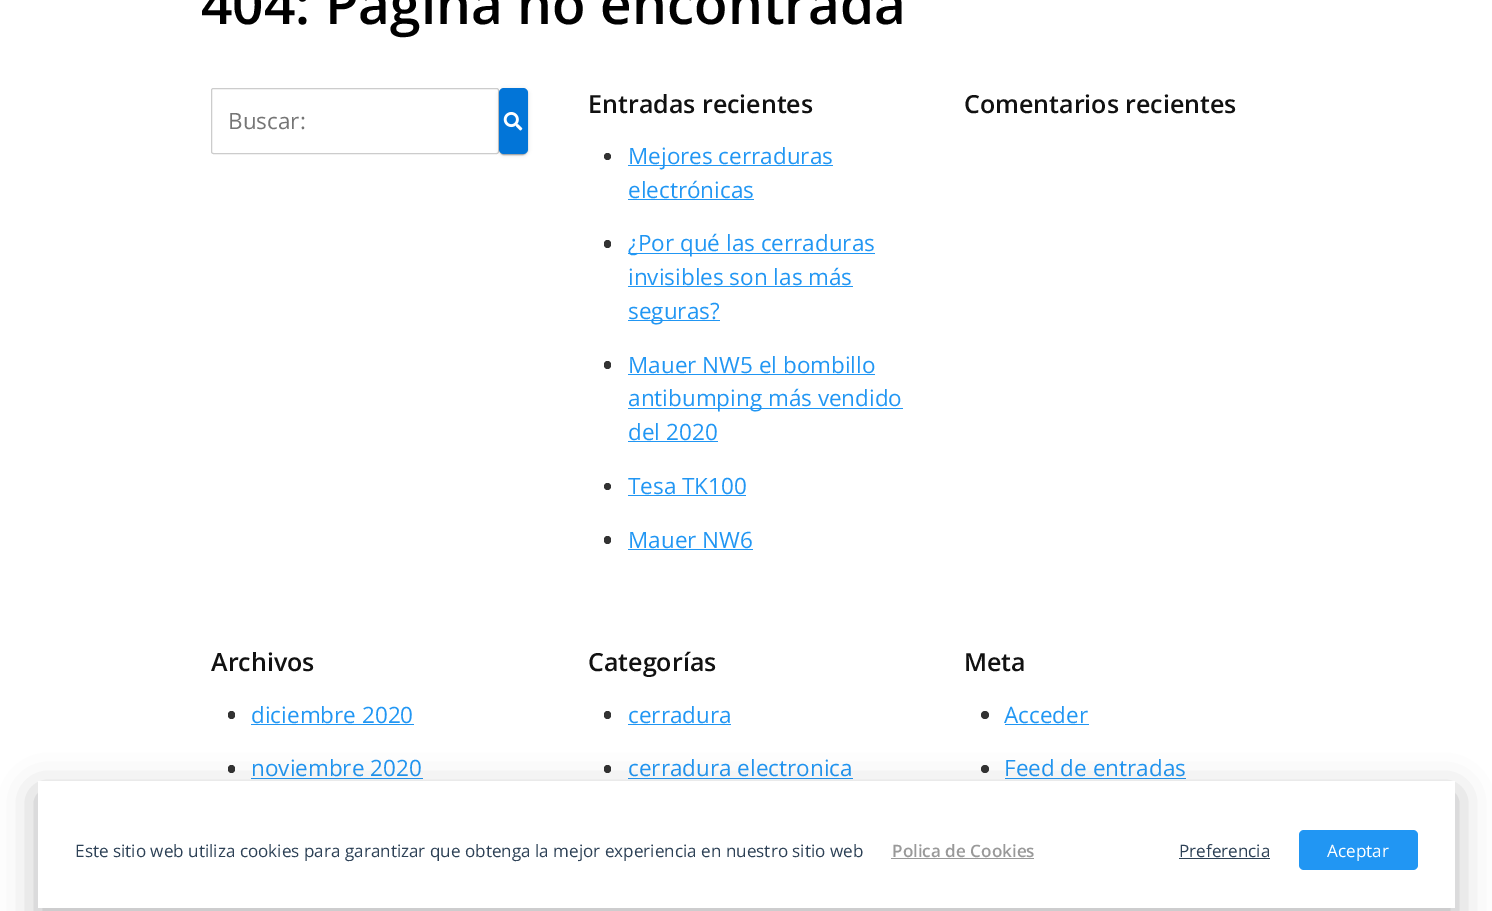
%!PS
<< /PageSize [1492 911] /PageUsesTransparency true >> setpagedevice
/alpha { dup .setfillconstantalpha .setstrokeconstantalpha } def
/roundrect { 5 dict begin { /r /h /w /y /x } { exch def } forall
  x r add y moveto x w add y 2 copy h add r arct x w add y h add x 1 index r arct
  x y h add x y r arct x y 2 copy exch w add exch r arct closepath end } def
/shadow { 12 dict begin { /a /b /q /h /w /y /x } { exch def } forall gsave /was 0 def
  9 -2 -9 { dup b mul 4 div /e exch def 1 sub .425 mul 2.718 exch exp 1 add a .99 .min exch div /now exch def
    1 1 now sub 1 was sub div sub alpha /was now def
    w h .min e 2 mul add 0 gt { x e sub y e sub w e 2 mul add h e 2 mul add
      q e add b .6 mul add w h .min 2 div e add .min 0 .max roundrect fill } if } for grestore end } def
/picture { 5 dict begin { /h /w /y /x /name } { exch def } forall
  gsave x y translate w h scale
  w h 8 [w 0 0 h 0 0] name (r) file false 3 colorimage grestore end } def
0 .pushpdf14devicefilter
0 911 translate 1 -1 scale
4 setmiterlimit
1 setgray
0 0 1492 911 rectfill
/OpenSans-SemiBold [55 0 0 -55 0 0] selectfont
0 setgray
201 24 moveto (404: Página no encontrada) show
/OpenSans-SemiBold [25 0 0 -25 0 0] selectfont
0.067 setgray
588 113 moveto (Entradas recientes) show
0.2 setgray
newpath 607.5 156.5 3.5 0 360 arc closepath fill
0.129 0.588 0.953 setrgbcolor
628 165 205 1 rectfill
/OpenSans-Regular [22.5 0 0 -22.5 0 0] selectfont
628 164 moveto (Mejores cerraduras) show
628 198 moveto (electrónicas) show
628 199 126 1 rectfill
0.2 setgray
604 240 7 8 3.5 roundrect fill
0.129 0.588 0.953 setrgbcolor
628 253 247 1 rectfill
628 251 moveto (¿Por qué las cerraduras) show
628 285 moveto (invisibles son las más) show
628 286 225 1 rectfill
628 320 92 1 rectfill
628 319 moveto (seguras?) show
0.2 setgray
604 361 7 8 3.5 roundrect fill
0.129 0.588 0.953 setrgbcolor
628 373 moveto (Mauer NW5 el bombillo) show
628 374 247 1 rectfill
628 408 275 1 rectfill
628 406 moveto (antibumping más vendido) show
628 440 moveto (del 2020) show
628 441 90 1 rectfill
0.2 setgray
newpath 607.5 486.5 3.5 0 360 arc closepath fill
0.129 0.588 0.953 setrgbcolor
628 494 moveto (Tesa TK100) show
628 495 118 1 rectfill
0.2 setgray
604 536 7 8 3.5 roundrect fill
0.129 0.588 0.953 setrgbcolor
628 548 moveto (Mauer NW6) show
628 549 125 1 rectfill
/OpenSans-SemiBold [25 0 0 -25 0 0] selectfont
0.067 setgray
964 113 moveto (Comentarios recientes) show
0.8 setgray
211.5 88.5 287 65 2 roundrect stroke
/OpenSans-Regular [22.5 0 0 -22.5 0 0] selectfont
0.459 setgray
228 129 moveto (Buscar:) show
0 setgray
499 89 29 66 5 2 0.12 shadow
500 91 26 64 4 0.5 0.2 shadow
499 89 29 66 5 0.5 0.14 shadow
0.008 0.459 0.847 setrgbcolor
499 88 29 66 5 roundrect fill
(img1.rgb) 503 112 20 19 picture
/OpenSans-SemiBold [25 0 0 -25 0 0] selectfont
0.067 setgray
211 671 moveto (Archivos) show
0.2 setgray
228 711 7 8 3.5 roundrect fill
/OpenSans-Regular [22.5 0 0 -22.5 0 0] selectfont
0.129 0.588 0.953 setrgbcolor
251 723 moveto (diciembre 2020) show
251 724 163 1 rectfill
0.2 setgray
228 765 7 8 3.5 roundrect fill
0.129 0.588 0.953 setrgbcolor
251 776 moveto (noviembre 2020) show
251 778 172 1 rectfill
/OpenSans-SemiBold [25 0 0 -25 0 0] selectfont
0.067 setgray
588 671 moveto (Categorías) show
0.2 setgray
604 711 7 8 3.5 roundrect fill
/OpenSans-Regular [22.5 0 0 -22.5 0 0] selectfont
0.129 0.588 0.953 setrgbcolor
628 723 moveto (cerradura) show
628 724 103 1 rectfill
0.2 setgray
604 765 7 8 3.5 roundrect fill
0.129 0.588 0.953 setrgbcolor
628 776 moveto (cerradura electronica) show
628 778 225 1 rectfill
/OpenSans-SemiBold [25 0 0 -25 0 0] selectfont
0.067 setgray
964 671 moveto (Meta) show
0.2 setgray
newpath 985 715 4 0 360 arc closepath fill
/OpenSans-Regular [22.5 0 0 -22.5 0 0] selectfont
0.129 0.588 0.953 setrgbcolor
1004 723 moveto (Acceder) show
1005 724 84 1 rectfill
0.2 setgray
newpath 985 769 4 0 360 arc closepath fill
0.129 0.588 0.953 setrgbcolor
1004 776 moveto (Feed de entradas) show
1005 778 181 1 rectfill
0.008 0.008 0.012 setrgbcolor
38 793 1417 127 0 18 0.28 shadow
1 setgray
38 781 1417 127 rectfill
/OpenSans-Regular [17.1 0 0 -17.1 0 0] selectfont
0.176 0.255 0.337 setrgbcolor
75 857 moveto (Este sitio web utiliza cookies para garantizar que obtenga la mejor experiencia en nuestro sitio web) show
/OpenSans-SemiBold [17.1 0 0 -17.1 0 0] selectfont
0.6 setgray
892 857 moveto (Polica de Cookies) show
891 858 143 1 rectfill
/OpenSans-Regular [17.1 0 0 -17.1 0 0] selectfont
0.176 0.255 0.337 setrgbcolor
1179 857 moveto (Preferencia) show
1179 858 91 1 rectfill
0.129 0.588 0.953 setrgbcolor
1299 830 119 40 5 roundrect fill
1 setgray
1327 857 moveto (Aceptar) show
.poppdf14devicefilter showpage
